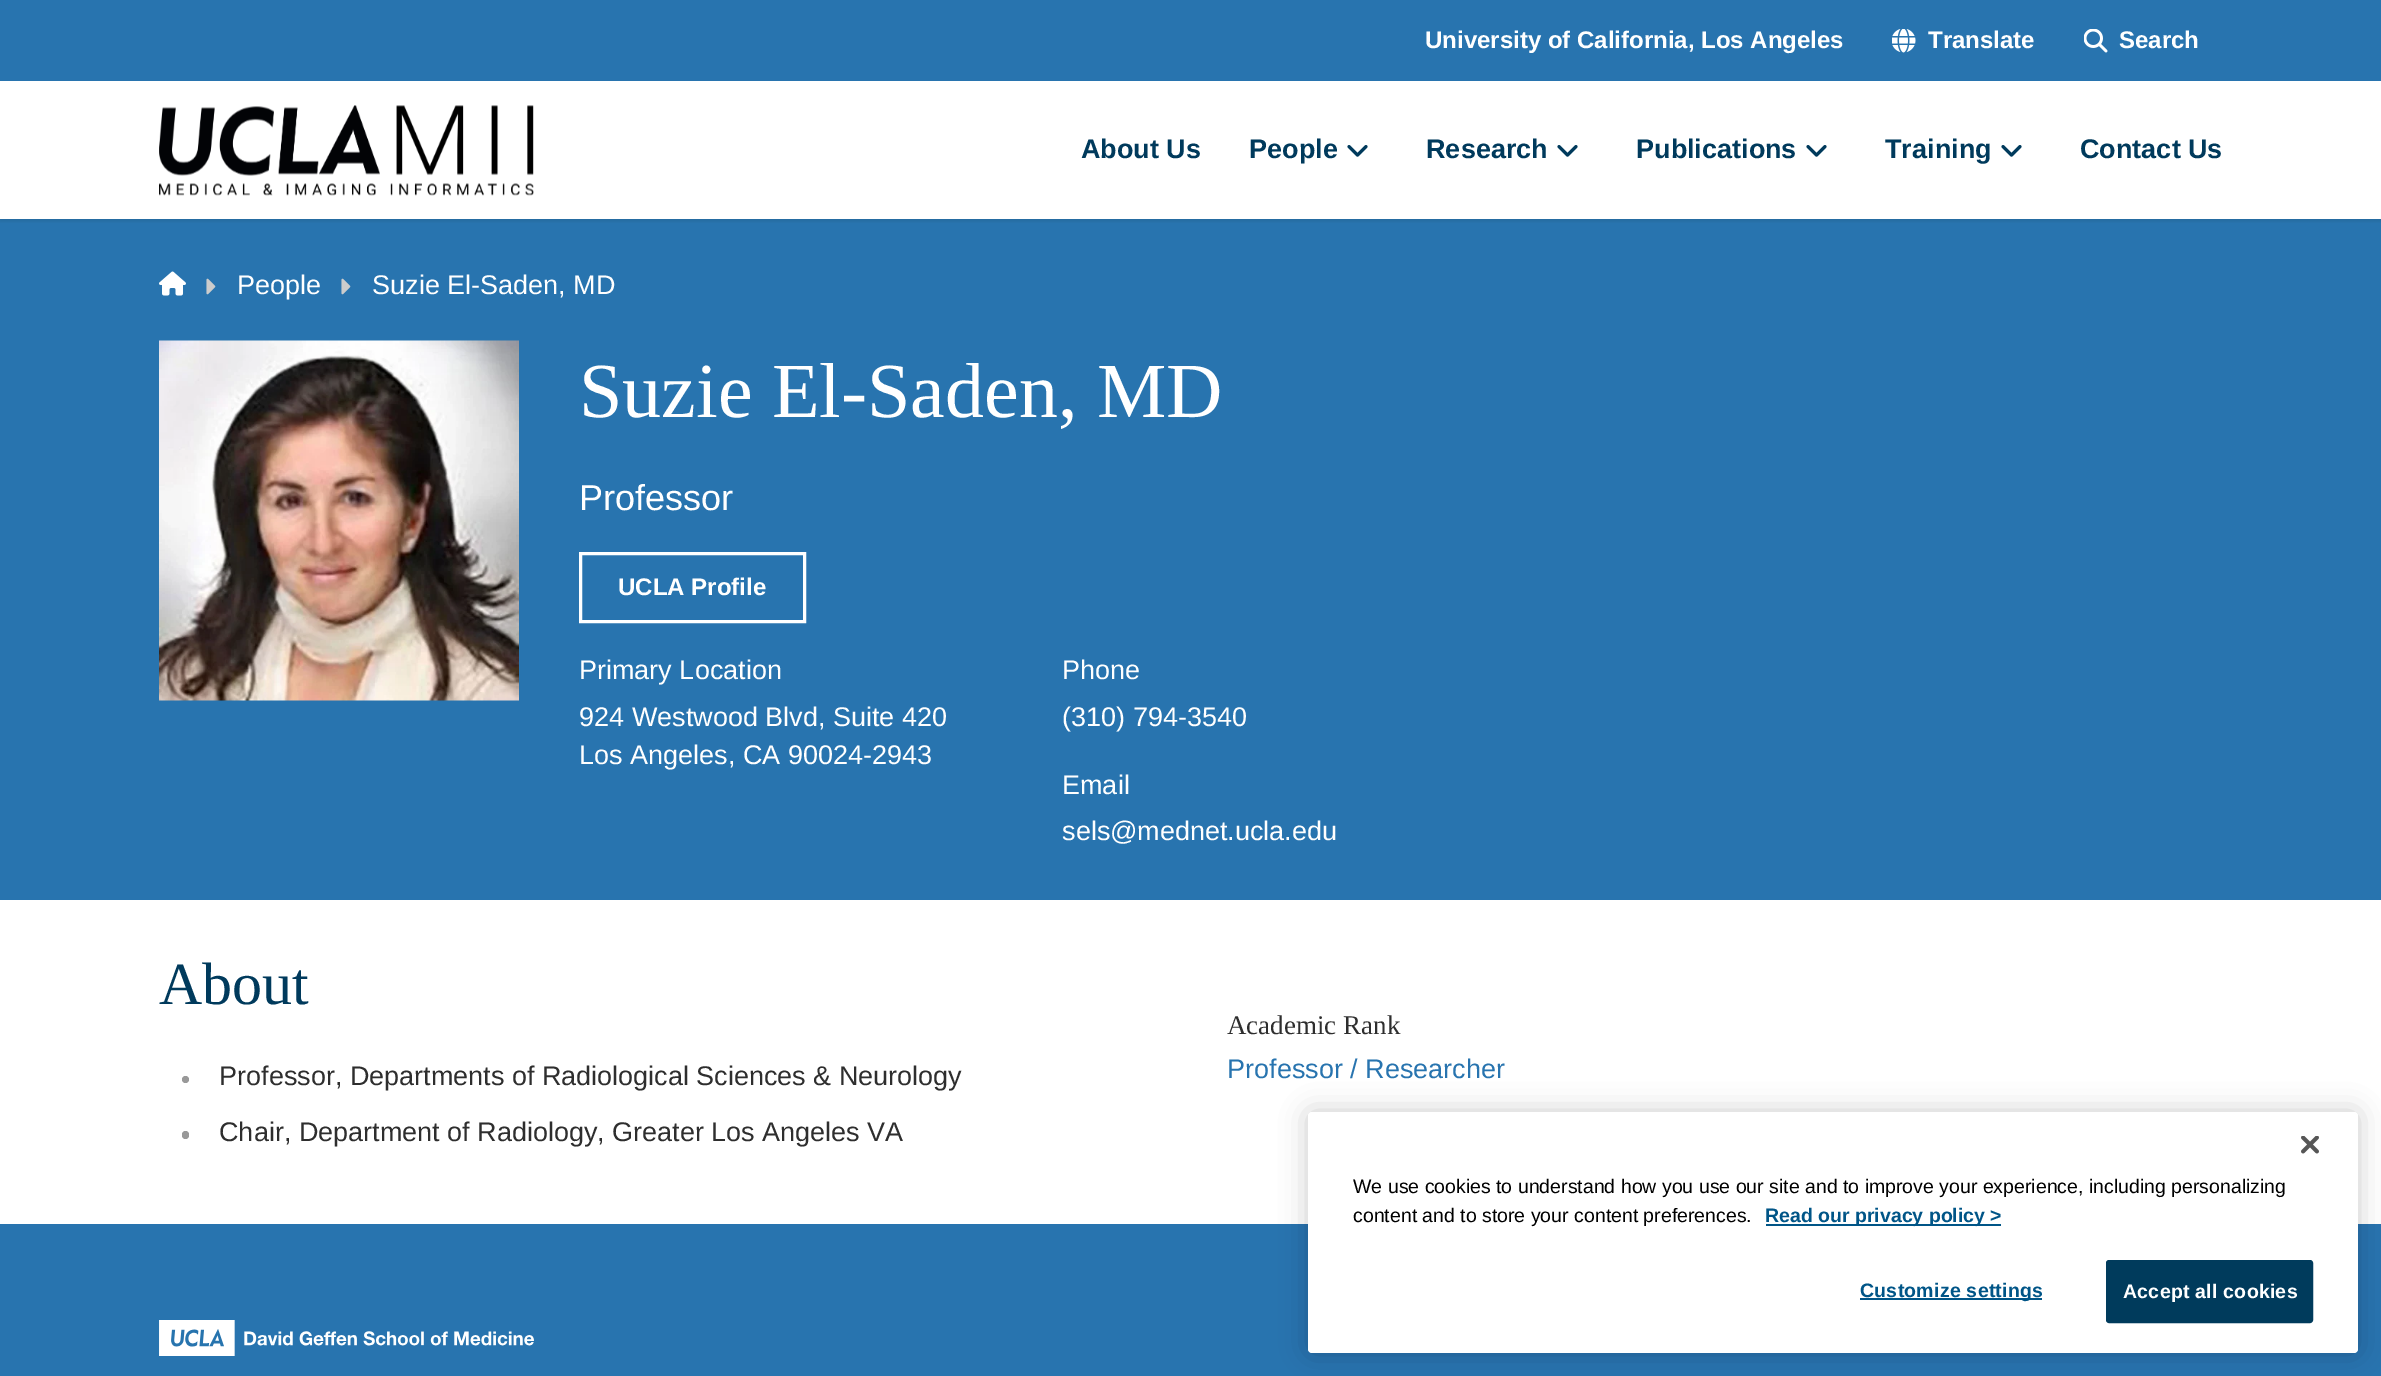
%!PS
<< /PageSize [2381 1376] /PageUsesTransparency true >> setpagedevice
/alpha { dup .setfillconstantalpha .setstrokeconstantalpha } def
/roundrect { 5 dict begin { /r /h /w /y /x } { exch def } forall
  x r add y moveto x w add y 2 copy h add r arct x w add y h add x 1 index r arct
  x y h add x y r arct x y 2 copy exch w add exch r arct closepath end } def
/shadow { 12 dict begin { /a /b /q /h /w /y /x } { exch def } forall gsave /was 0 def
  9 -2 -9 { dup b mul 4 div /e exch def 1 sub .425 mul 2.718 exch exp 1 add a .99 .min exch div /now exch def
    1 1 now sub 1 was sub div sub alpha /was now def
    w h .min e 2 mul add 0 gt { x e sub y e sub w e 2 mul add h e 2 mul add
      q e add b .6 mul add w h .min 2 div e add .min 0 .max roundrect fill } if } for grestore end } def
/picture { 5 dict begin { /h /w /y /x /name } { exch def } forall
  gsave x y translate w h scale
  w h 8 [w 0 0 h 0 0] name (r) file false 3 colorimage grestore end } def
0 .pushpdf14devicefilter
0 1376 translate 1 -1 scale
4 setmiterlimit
1 setgray
0 0 2381 1376 rectfill
0.157 0.455 0.686 setrgbcolor
0 219 2381 681 rectfill
gsave
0 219 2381 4 rectclip
0 setgray
0 2 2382 219 0 2 0.1 shadow
grestore
0 0 2381 81 rectfill
/LiberationSans-Bold [24 0 0 -24 0 0] selectfont
1 setgray
1425 48 moveto (University of California, Los Angeles) show
(img1.rgb) 1892 29 24 24 picture
1928 48 moveto (Translate) show
(img2.rgb) 2084 29 24 24 picture
2119 48 moveto (Search) show
(img3.rgb) 159 105 375 91 picture
/LiberationSans-Bold [27 0 0 -27 0 0] selectfont
0 0.227 0.361 setrgbcolor
1081 158 moveto (About Us) show
1249 158 moveto (People) show
(img4.rgb) 1347 145 21 12 picture
1426 158 moveto (Research) show
(img4.rgb) 1557 145 21 12 picture
1636 158 moveto (Publications) show
(img4.rgb) 1806 145 21 12 picture
1885 158 moveto (Training) show
(img4.rgb) 2001 145 21 12 picture
2080 158 moveto (Contact Us) show
(img5.rgb) 159 271 27 25 picture
(img6.rgb) 206 278 10 17 picture
/LiberationSans-Regular [27 0 0 -27 0 0] selectfont
1 setgray
237 294 moveto (People) show
(img6.rgb) 341 278 10 17 picture
372 294 moveto (Suzie El-Saden, MD) show
(img7.rgb) 159 340 360 361 picture
/LiberationSerif-Regular [78 0 0 -78 0 0] selectfont
579 417 moveto (Suzie El-Saden, MD) show
/LiberationSans-Regular [36 0 0 -36 0 0] selectfont
579 510 moveto (Professor) show
3 setlinewidth
580.5 553.5 224 68 rectstroke
/LiberationSans-Bold [24 0 0 -24 0 0] selectfont
618 595 moveto (UCLA Profile) show
/LiberationSans-Regular [27 0 0 -27 0 0] selectfont
579 679 moveto (Primary Location) show
579 726 moveto (924 Westwood Blvd, Suite 420) show
579 764 moveto (Los Angeles, CA 90024-2943) show
1062 679 moveto (Phone) show
1062 726 moveto (\(310\) 794-3540) show
1062 794 moveto (Email) show
1062 840 moveto (sels@mednet.ucla.edu) show
/LiberationSerif-Regular [60 0 0 -60 0 0] selectfont
0 0.227 0.361 setrgbcolor
159 1004 moveto (About) show
0.6 setgray
newpath 185.5 1079.5 3.5 0 360 arc closepath fill
/LiberationSans-Regular [27 0 0 -27 0 0] selectfont
0.18 setgray
219 1085 moveto (Professor, Departments of Radiological Sciences & Neurology) show
0.6 setgray
182 1131 7 8 3.5 roundrect fill
0.18 setgray
219 1141 moveto (Chair, Department of Radiology, Greater Los Angeles VA) show
/LiberationSerif-Regular [27 0 0 -27 0 0] selectfont
1227 1034 moveto (Academic Rank) show
/LiberationSans-Regular [27 0 0 -27 0 0] selectfont
0.157 0.455 0.686 setrgbcolor
1227 1078 moveto (Professor / Researcher) show
0 1224 2381 152 rectfill
(img8.rgb) 159 1320 375 36 picture
0 setgray
1308 1112 1050 241 4 13.5 0.2 shadow
1 setgray
1308 1112 1050 241 4 roundrect fill
(img9.rgb) 2301 1136 18 18 picture
/LiberationSans-Regular [19.5 0 0 -19.5 0 0] selectfont
0 setgray
1353 1193 moveto (We use cookies to understand how you use our site and to improve your experience, including personalizing) show
1353 1222 moveto (content and to store your content preferences.) show
0 0.333 0.529 setrgbcolor
1766 1224 235 2 rectfill
/LiberationSans-Bold [19.5 0 0 -19.5 0 0] selectfont
1765 1222 moveto (Read our privacy policy >) show
1860 1298 182 2 rectfill
1860 1297 moveto 0.25 0 (Customize settings) ashow
0 0.231 0.361 setrgbcolor
2107 1261 205 61 2 roundrect gsave fill grestore
2 setlinewidth
stroke
1 setgray
2123 1298 moveto 0.25 0 (Accept all cookies) ashow
.poppdf14devicefilter showpage
